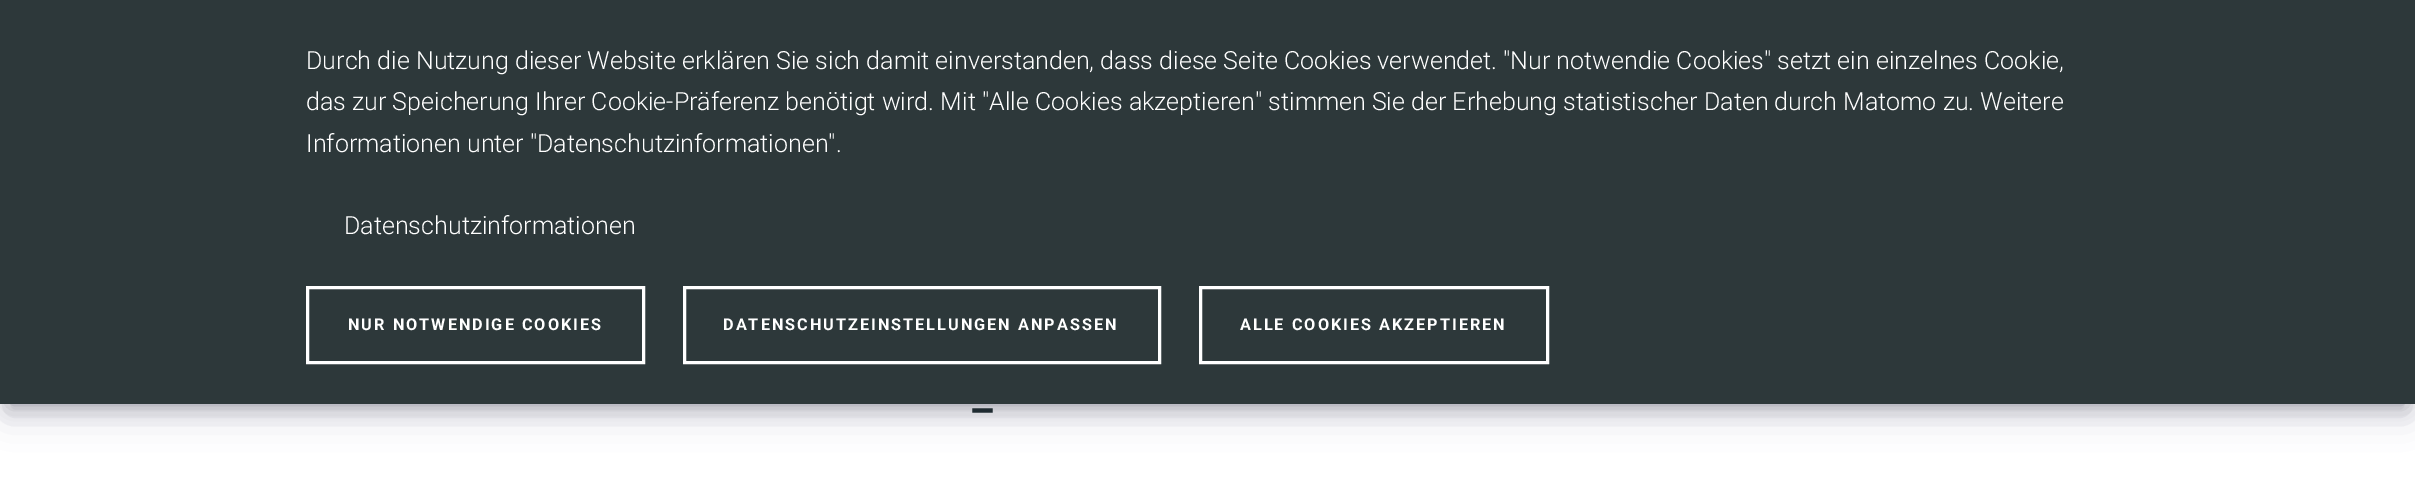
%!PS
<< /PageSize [2415 497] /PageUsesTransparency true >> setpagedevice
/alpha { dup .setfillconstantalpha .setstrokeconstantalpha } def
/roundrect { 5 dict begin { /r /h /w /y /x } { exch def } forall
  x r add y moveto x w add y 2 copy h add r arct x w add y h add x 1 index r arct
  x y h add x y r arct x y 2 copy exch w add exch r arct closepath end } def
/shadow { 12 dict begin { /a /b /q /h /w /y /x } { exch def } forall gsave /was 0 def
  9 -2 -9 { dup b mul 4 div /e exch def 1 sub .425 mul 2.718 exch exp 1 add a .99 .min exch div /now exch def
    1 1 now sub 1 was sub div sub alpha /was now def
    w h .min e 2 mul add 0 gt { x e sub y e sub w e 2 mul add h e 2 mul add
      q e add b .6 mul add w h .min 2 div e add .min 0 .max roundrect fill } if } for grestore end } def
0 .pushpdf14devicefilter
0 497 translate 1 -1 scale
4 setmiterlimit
1 setgray
0 0 2415 497 rectfill
0 setgray
10 20 2395 384 0 10 0.3 shadow
0.196 0.196 0.365 setrgbcolor
6 23 2403 391 0 17 0.25 shadow
0.176 0.22 0.227 setrgbcolor
0 0 2415 404 rectfill
/Roboto-Light [25 0 0 -25 0 0] selectfont
1 setgray
306 69 moveto (Durch die Nutzung dieser Website erklären Sie sich damit einverstanden, dass diese Seite Cookies verwendet. "Nur notwendie Cookies" setzt ein einzelnes Cookie,) show
306 110 moveto (das zur Speicherung Ihrer Cookie-Präferenz benötigt wird. Mit "Alle Cookies akzeptieren" stimmen Sie der Erhebung statistischer Daten durch Matomo zu. Weitere) show
306 152 moveto (Informationen unter "Datenschutzinformationen".) show
344 234 moveto (Datenschutzinformationen) show
3 setlinewidth
307.5 287.5 336 75 rectstroke
/Roboto-Bold [16.25 0 0 -16.25 0 0] selectfont
348 330 moveto 2 0 (NUR NOTWENDIGE COOKIES) ashow
684.5 287.5 475 75 rectstroke
723 330 moveto 2 0 (DATENSCHUTZEINSTELLUNGEN ANPASSEN) ashow
1200.5 287.5 347 75 rectstroke
1240 330 moveto 2 0 (ALLE COOKIES AKZEPTIEREN) ashow
/Roboto-Light [88 0 0 -88 0 0] selectfont
0.122 0.169 0.192 setrgbcolor
970 438 moveto (-) show
.poppdf14devicefilter showpage
